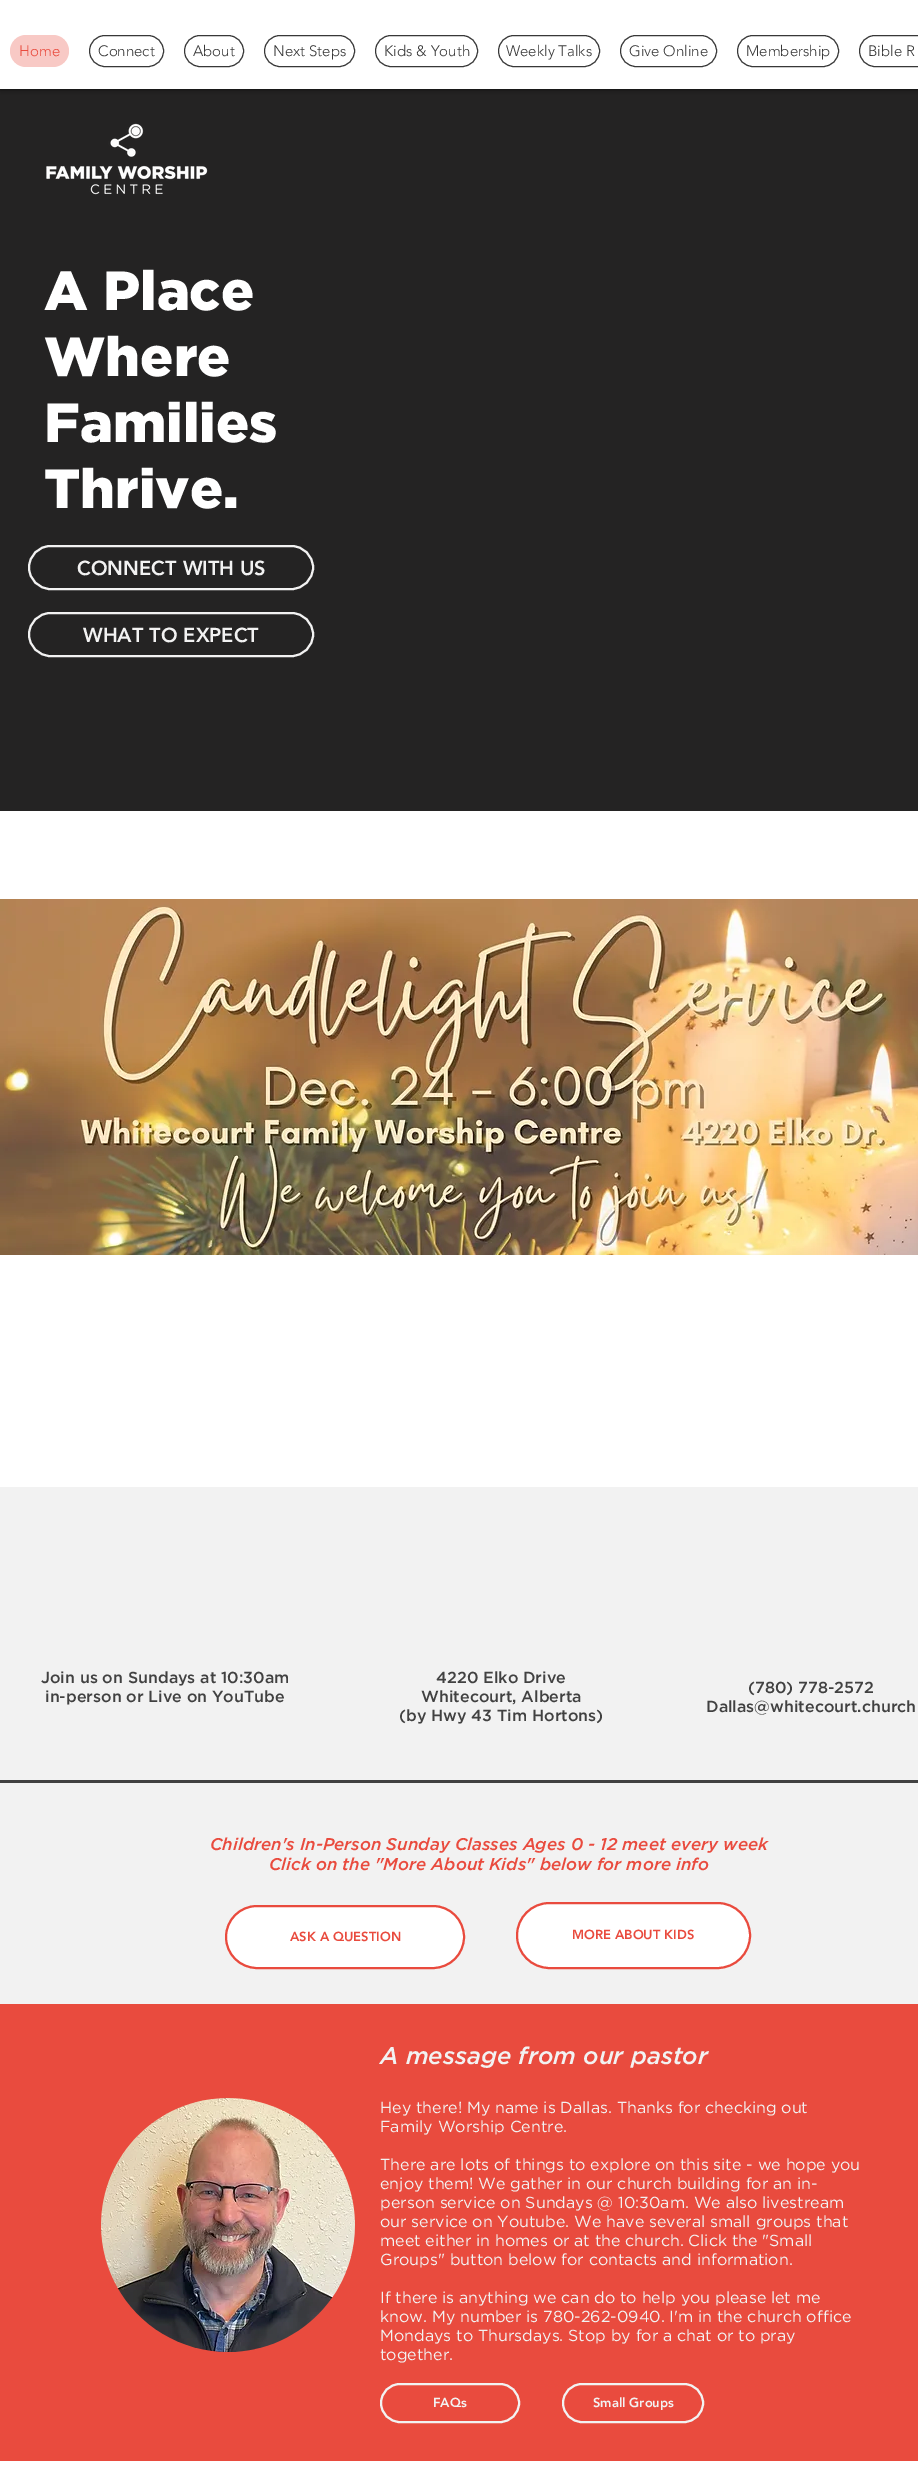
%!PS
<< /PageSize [918 2468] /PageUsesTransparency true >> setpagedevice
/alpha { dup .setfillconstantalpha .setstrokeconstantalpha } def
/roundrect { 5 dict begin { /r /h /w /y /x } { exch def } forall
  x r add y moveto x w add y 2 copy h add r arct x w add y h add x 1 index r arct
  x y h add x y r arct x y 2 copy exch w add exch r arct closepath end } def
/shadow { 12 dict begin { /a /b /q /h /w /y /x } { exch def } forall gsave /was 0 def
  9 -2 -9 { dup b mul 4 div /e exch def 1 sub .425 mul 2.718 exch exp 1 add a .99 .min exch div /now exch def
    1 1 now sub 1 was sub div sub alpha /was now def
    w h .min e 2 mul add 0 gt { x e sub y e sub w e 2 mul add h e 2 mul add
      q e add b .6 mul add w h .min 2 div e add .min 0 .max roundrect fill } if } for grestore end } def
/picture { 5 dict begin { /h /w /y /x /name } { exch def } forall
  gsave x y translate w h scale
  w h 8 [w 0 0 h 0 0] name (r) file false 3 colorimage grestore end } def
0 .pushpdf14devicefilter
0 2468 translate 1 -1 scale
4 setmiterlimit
1 setgray
0 0 918 2468 rectfill
0.141 0.137 0.137 setrgbcolor
0 89 918 722 rectfill
0 setgray
0 0 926 89 0 2.5 0.7 shadow
1 setgray
0 0 918 89 rectfill
0.973 0.788 0.773 setrgbcolor
10 35 59 32 16 roundrect fill
/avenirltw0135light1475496-Light [15 0 0 -15 0 0] selectfont
0.914 0.294 0.243 setrgbcolor
19 56 moveto (Home) show
0.22 setgray
89.5 35.5 74 31 15.5 roundrect stroke
98 56 moveto (Connect) show
184.5 35.5 59 31 15.5 roundrect stroke
193 56 moveto (About) show
264.5 35.5 90 31 15.5 roundrect stroke
273 56 moveto (Next Steps) show
375.5 35.5 102 31 15.5 roundrect stroke
384 56 moveto (Kids & Youth) show
498.5 35.5 101 31 15.5 roundrect stroke
506 56 moveto (Weekly Talks) show
620.5 35.5 96 31 15.5 roundrect stroke
629 56 moveto (Give Online) show
737.5 35.5 101 31 15.5 roundrect stroke
746 56 moveto (Membership) show
859.5 35.5 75 31 15.5 roundrect stroke
868 56 moveto (Bible R) show
(img1.rgb) 46 123 162 72 picture
/Gotham-Black [55 0 0 -55 0 0] selectfont
1 setgray
44 310 moveto (A Place) show
44 376 moveto (Where) show
44 442 moveto (Families) show
44 508 moveto (Thrive.) show
0.949 setgray
2 setlinewidth
29 546 284 43 21.5 roundrect stroke
/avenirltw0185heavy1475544-Black [20 0 0 -20 0 0] selectfont
77 575 moveto (CONNECT WITH US) show
29 613 284 43 21.5 roundrect stroke
83 642 moveto (WHAT TO EXPECT) show
(img2.rgb) 0 899 918 356 picture
0 1487 918 517 rectfill
/Gotham-Medium [16 0 0 -16 0 0] selectfont
0.255 setgray
41 1683 moveto (Join us on Sundays at 10:30am) show
45 1702 moveto (in-person or Live on YouTube) show
436 1683 moveto (4220 Elko Drive) show
421 1702 moveto (Whitecourt, Alberta) show
399 1721 moveto (\(by Hwy 43 Tim Hortons\)) show
748 1693 moveto (\(780\) 778-2572) show
706 1712 moveto (Dallas@whitecourt.church) show
0 1780 918 3 rectfill
/Gotham-MediumItalic [17 0 0 -17 0 0] selectfont
0.914 0.294 0.243 setrgbcolor
210 1850 moveto (Children's In-Person Sunday Classes Ages 0 - 12 meet every week) show
269 1870 moveto (Click on the "More About Kids" below for more info) show
1 setgray
226 1906 238 62 31 roundrect gsave fill grestore
0.914 0.294 0.243 setrgbcolor
stroke
/avenirltw0185heavy1475544-Black [13 0 0 -13 0 0] selectfont
290 1941 moveto (ASK A QUESTION) show
1 setgray
517 1903 233 65 32.5 roundrect gsave fill grestore
0.914 0.294 0.243 setrgbcolor
stroke
572 1939 moveto (MORE ABOUT KIDS) show
0 2004 918 457 rectfill
/Gotham-MediumItalic [24 0 0 -24 0 0] selectfont
0.949 setgray
380 2064 moveto (A message from our pastor) show
(img3.rgb) 101 2098 254 254 picture
/Gotham-Regular [16 0 0 -16 0 0] selectfont
380 2113 moveto (Hey there! My name is Dallas. Thanks for checking out) show
380 2132 moveto (Family Worship Centre.) show
380 2170 moveto (There are lots of things to explore on this site - we hope you) show
380 2189 moveto (enjoy them! We gather in our church building for an in-) show
380 2208 moveto (person service on Sundays @ 10:30am. We also livestream) show
380 2227 moveto (our service on Youtube. We have several small groups that) show
380 2246 moveto (meet either in homes or at the church. Click the "Small) show
380 2265 moveto (Groups" button below for contacts and information.) show
380 2303 moveto (If there is anything we can do to help you please let me) show
380 2322 moveto (know. My number is 780-262-0940. I'm in the church office) show
380 2341 moveto (Mondays to Thursdays. Stop by for a chat or to pray) show
380 2360 moveto (together.) show
381 2384 138 38 19 roundrect stroke
/avenirltw0185heavy1475544-Black [13 0 0 -13 0 0] selectfont
433 2407 moveto (FAQs) show
563 2384 140 38 19 roundrect stroke
593 2407 moveto (Small Groups) show
.poppdf14devicefilter showpage
